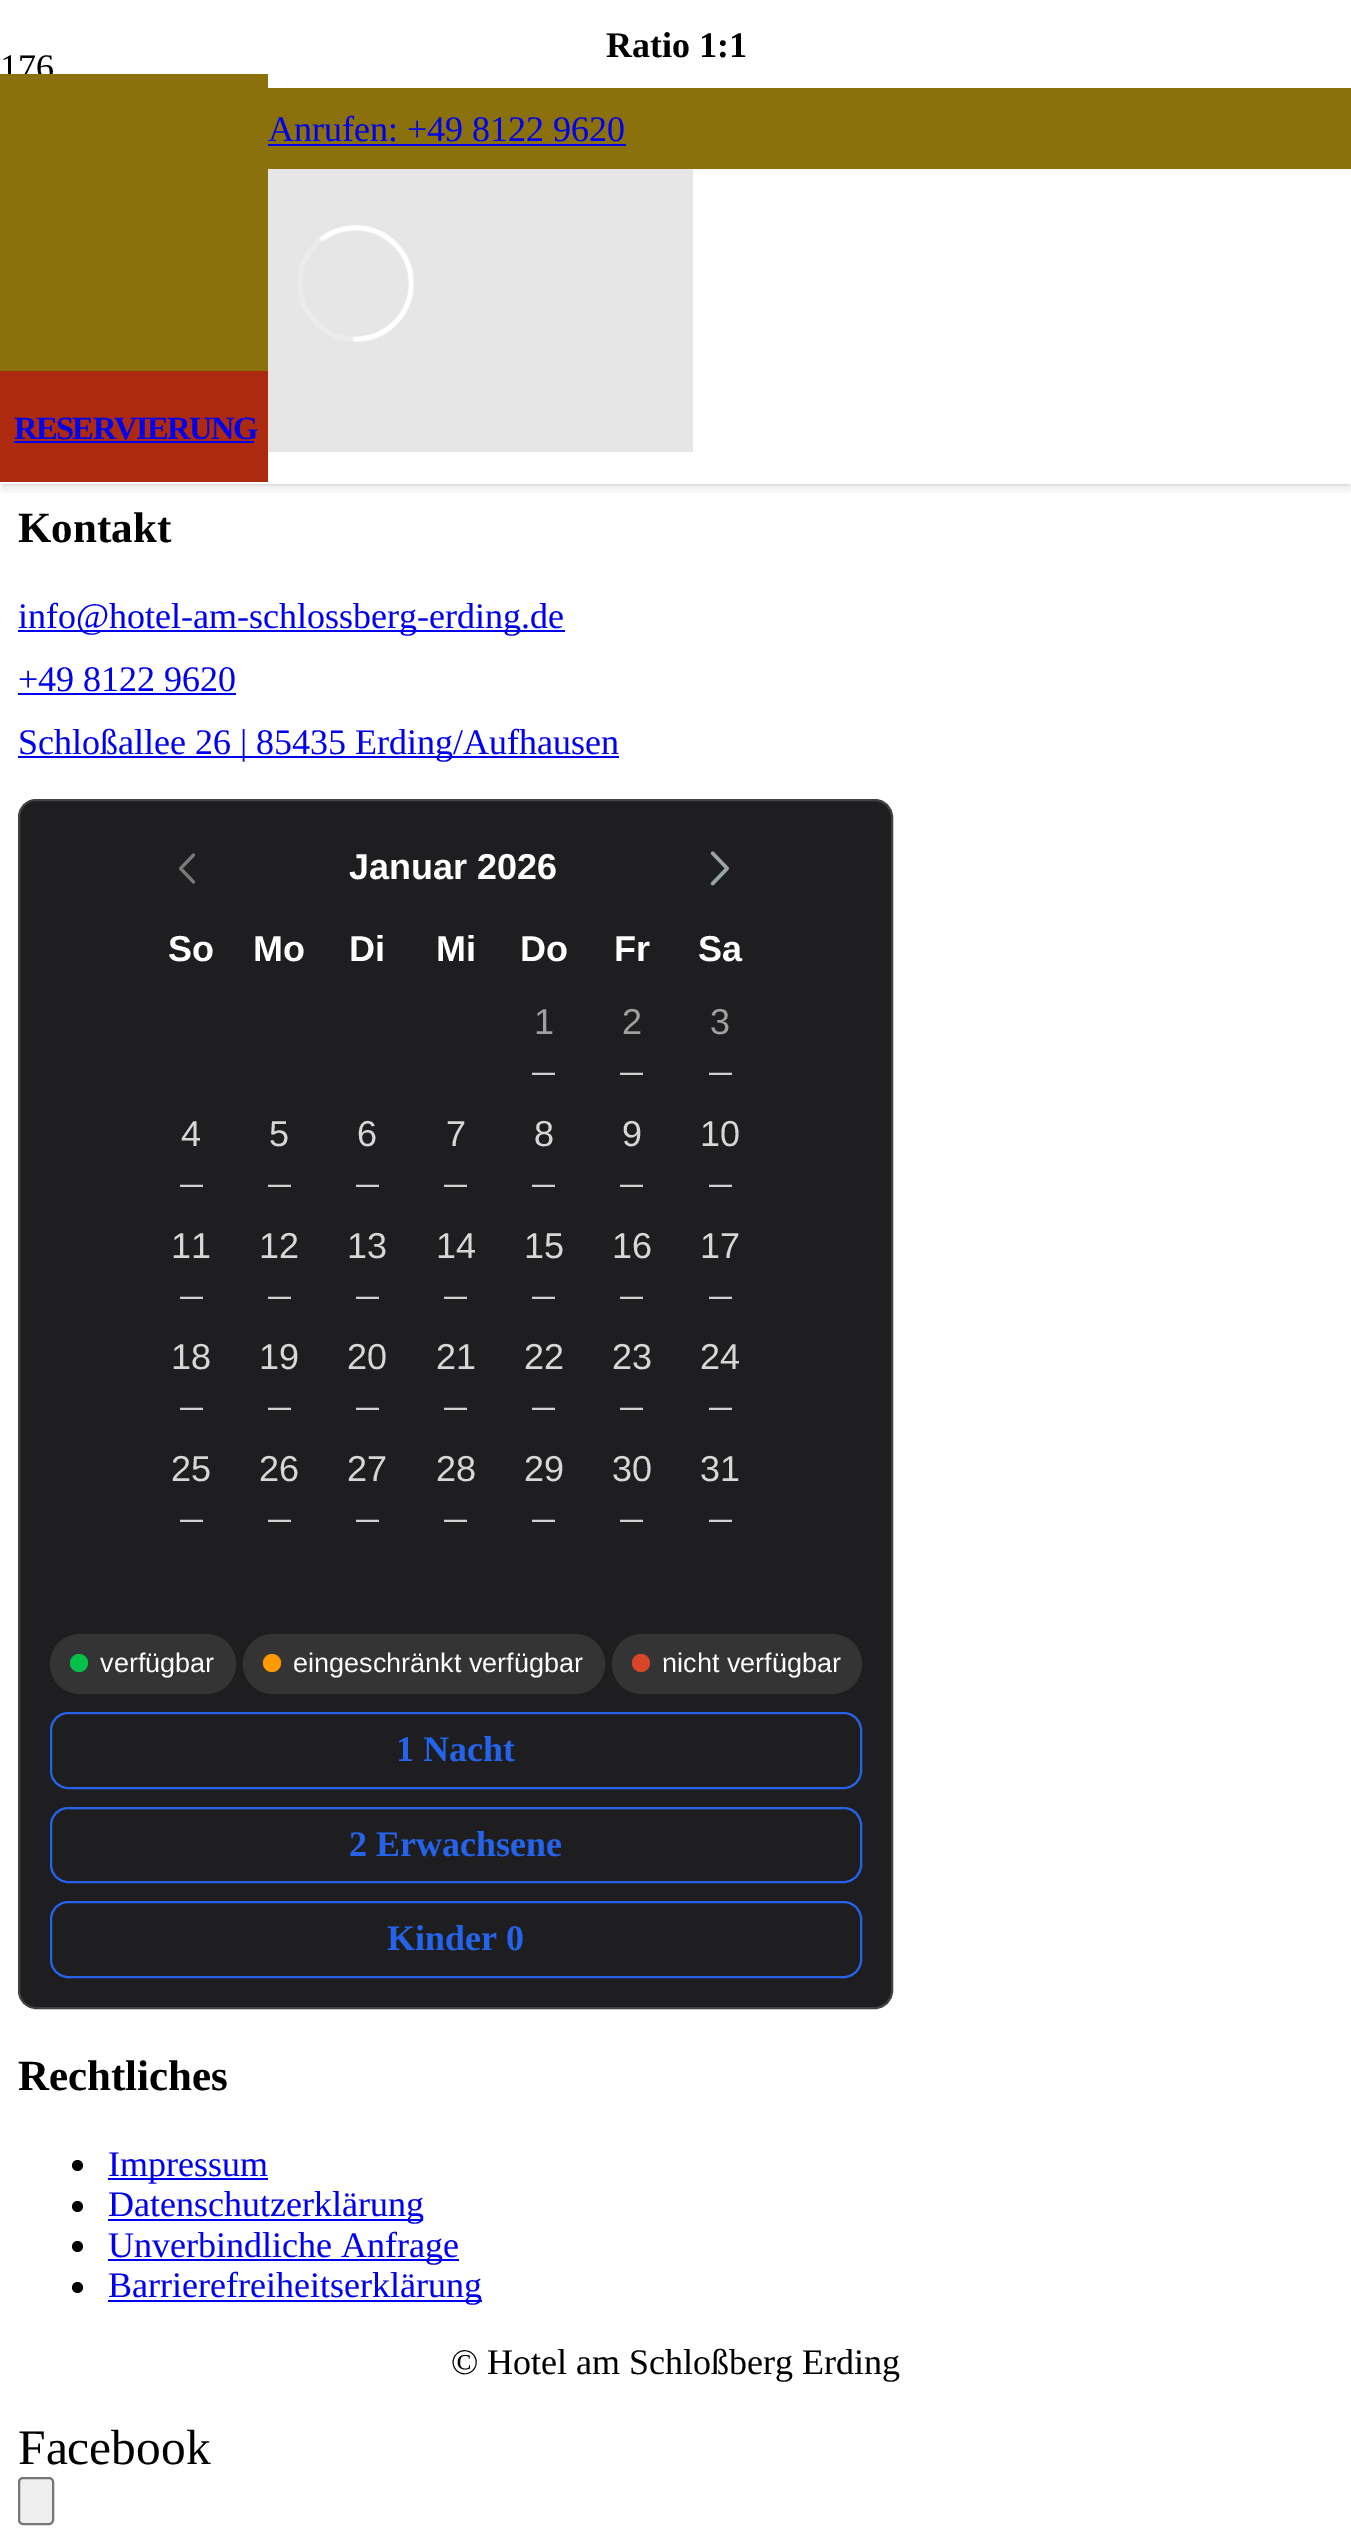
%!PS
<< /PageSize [1351 2541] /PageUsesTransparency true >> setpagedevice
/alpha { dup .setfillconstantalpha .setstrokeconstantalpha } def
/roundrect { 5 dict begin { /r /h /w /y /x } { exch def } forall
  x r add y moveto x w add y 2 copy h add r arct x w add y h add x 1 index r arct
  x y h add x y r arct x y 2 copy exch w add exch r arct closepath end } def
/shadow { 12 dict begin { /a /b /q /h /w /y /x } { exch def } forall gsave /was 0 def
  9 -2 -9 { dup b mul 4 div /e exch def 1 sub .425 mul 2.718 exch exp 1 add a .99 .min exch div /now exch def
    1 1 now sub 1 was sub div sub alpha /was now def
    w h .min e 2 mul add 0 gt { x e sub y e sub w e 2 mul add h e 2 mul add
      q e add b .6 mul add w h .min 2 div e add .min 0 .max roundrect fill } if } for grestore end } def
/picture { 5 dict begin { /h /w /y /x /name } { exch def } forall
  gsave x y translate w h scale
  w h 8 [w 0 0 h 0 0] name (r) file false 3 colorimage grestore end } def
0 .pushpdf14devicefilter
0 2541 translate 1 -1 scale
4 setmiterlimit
1 setgray
0 0 1351 2541 rectfill
/LiberationSerif-Bold [36 0 0 -36 0 0] selectfont
0 setgray
606 57 moveto (Ratio 1:1) show
(img1.rgb) 268 169 425 284 picture
/LiberationSerif-Regular [36 0 0 -36 0 0] selectfont
0 79 moveto (176) show
0.541 0.443 0.047 setrgbcolor
268 88 1083 81 rectfill
0 0 0.933 setrgbcolor
268 141 moveto (Anrufen: +49 8122 9620) show
268 144 358 2 rectfill
gsave
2 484 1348 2 rectclip
0 setgray
2 176 1348 310 0 1 0.05 shadow
grestore
gsave
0 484 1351 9 rectclip
0 setgray
2 178 1348 310 0 5.5 0.1 shadow
grestore
0.9 alpha
1 setgray
1 169 1350 315 rectfill
1 alpha
0.541 0.443 0.047 setrgbcolor
0 74 268 297 rectfill
0.678 0.165 0.063 setrgbcolor
0 371 268 111 rectfill
/LiberationSerif-Bold [32.5 0 0 -32.5 0 0] selectfont
0 0 0.933 setrgbcolor
14 439 moveto -1.6 0 (RESERVIERUNG) ashow
14 441 240 2 rectfill
/LiberationSerif-Bold [43 0 0 -43 0 0] selectfont
0 setgray
18 542 moveto (Kontakt) show
0 0 0.933 setrgbcolor
18 630 547 2 rectfill
/LiberationSerif-Regular [36 0 0 -36 0 0] selectfont
18 628 moveto (info@hotel-am-schlossberg-erding.de) show
18 691 moveto (+49 8122 9620) show
18 693 218 2 rectfill
18 756 601 2 rectfill
18 754 moveto (Schloßallee 26 | 85435 Erding/Aufhausen) show
0.118 0.118 0.129 setrgbcolor
19 800 873 1208 17 roundrect gsave fill grestore
0.255 setgray
2 setlinewidth
stroke
(img2.rgb) 178 853 18 31 picture
/LiberationSans-Bold [36 0 0 -36 0 0] selectfont
1 setgray
349 879 moveto (Januar 2026) show
(img3.rgb) 710 851 19 35 picture
168 961 moveto (So) show
253 961 moveto (Mo) show
349 961 moveto (Di) show
436 961 moveto (Mi) show
520 961 moveto (Do) show
614 961 moveto (Fr) show
698 961 moveto (Sa) show
/LiberationSans-Regular [36 0 0 -36 0 0] selectfont
0.627 setgray
534 1034 moveto (1) show
/LiberationSans-Bold [23 0 0 -23 0 0] selectfont
0.82 setgray
532 1080 moveto (—) show
/LiberationSans-Regular [36 0 0 -36 0 0] selectfont
0.627 setgray
622 1034 moveto (2) show
/LiberationSans-Bold [23 0 0 -23 0 0] selectfont
0.82 setgray
620 1080 moveto (—) show
/LiberationSans-Regular [36 0 0 -36 0 0] selectfont
0.627 setgray
710 1034 moveto (3) show
/LiberationSans-Bold [23 0 0 -23 0 0] selectfont
0.82 setgray
709 1080 moveto (—) show
/LiberationSans-Regular [36 0 0 -36 0 0] selectfont
0.843 setgray
181 1146 moveto (4) show
/LiberationSans-Bold [23 0 0 -23 0 0] selectfont
0.82 setgray
180 1192 moveto (—) show
/LiberationSans-Regular [36 0 0 -36 0 0] selectfont
0.843 setgray
269 1146 moveto (5) show
/LiberationSans-Bold [23 0 0 -23 0 0] selectfont
0.82 setgray
268 1192 moveto (—) show
/LiberationSans-Regular [36 0 0 -36 0 0] selectfont
0.843 setgray
357 1146 moveto (6) show
/LiberationSans-Bold [23 0 0 -23 0 0] selectfont
0.82 setgray
356 1192 moveto (—) show
/LiberationSans-Regular [36 0 0 -36 0 0] selectfont
0.843 setgray
446 1146 moveto (7) show
/LiberationSans-Bold [23 0 0 -23 0 0] selectfont
0.82 setgray
444 1192 moveto (—) show
/LiberationSans-Regular [36 0 0 -36 0 0] selectfont
0.843 setgray
534 1146 moveto (8) show
/LiberationSans-Bold [23 0 0 -23 0 0] selectfont
0.82 setgray
532 1192 moveto (—) show
/LiberationSans-Regular [36 0 0 -36 0 0] selectfont
0.843 setgray
622 1146 moveto (9) show
/LiberationSans-Bold [23 0 0 -23 0 0] selectfont
0.82 setgray
620 1192 moveto (—) show
/LiberationSans-Regular [36 0 0 -36 0 0] selectfont
0.843 setgray
700 1146 moveto (10) show
/LiberationSans-Bold [23 0 0 -23 0 0] selectfont
0.82 setgray
709 1192 moveto (—) show
/LiberationSans-Regular [36 0 0 -36 0 0] selectfont
0.843 setgray
171 1258 moveto (11) show
/LiberationSans-Bold [23 0 0 -23 0 0] selectfont
0.82 setgray
180 1304 moveto (—) show
/LiberationSans-Regular [36 0 0 -36 0 0] selectfont
0.843 setgray
259 1258 moveto (12) show
/LiberationSans-Bold [23 0 0 -23 0 0] selectfont
0.82 setgray
268 1304 moveto (—) show
/LiberationSans-Regular [36 0 0 -36 0 0] selectfont
0.843 setgray
347 1258 moveto (13) show
/LiberationSans-Bold [23 0 0 -23 0 0] selectfont
0.82 setgray
356 1304 moveto (—) show
/LiberationSans-Regular [36 0 0 -36 0 0] selectfont
0.843 setgray
436 1258 moveto (14) show
/LiberationSans-Bold [23 0 0 -23 0 0] selectfont
0.82 setgray
444 1304 moveto (—) show
/LiberationSans-Regular [36 0 0 -36 0 0] selectfont
0.843 setgray
524 1258 moveto (15) show
/LiberationSans-Bold [23 0 0 -23 0 0] selectfont
0.82 setgray
532 1304 moveto (—) show
/LiberationSans-Regular [36 0 0 -36 0 0] selectfont
0.843 setgray
612 1258 moveto (16) show
/LiberationSans-Bold [23 0 0 -23 0 0] selectfont
0.82 setgray
620 1304 moveto (—) show
/LiberationSans-Regular [36 0 0 -36 0 0] selectfont
0.843 setgray
700 1258 moveto (17) show
/LiberationSans-Bold [23 0 0 -23 0 0] selectfont
0.82 setgray
709 1304 moveto (—) show
/LiberationSans-Regular [36 0 0 -36 0 0] selectfont
0.843 setgray
171 1369 moveto (18) show
/LiberationSans-Bold [23 0 0 -23 0 0] selectfont
0.82 setgray
180 1415 moveto (—) show
/LiberationSans-Regular [36 0 0 -36 0 0] selectfont
0.843 setgray
259 1369 moveto (19) show
/LiberationSans-Bold [23 0 0 -23 0 0] selectfont
0.82 setgray
268 1415 moveto (—) show
/LiberationSans-Regular [36 0 0 -36 0 0] selectfont
0.843 setgray
347 1369 moveto (20) show
/LiberationSans-Bold [23 0 0 -23 0 0] selectfont
0.82 setgray
356 1415 moveto (—) show
/LiberationSans-Regular [36 0 0 -36 0 0] selectfont
0.843 setgray
436 1369 moveto (21) show
/LiberationSans-Bold [23 0 0 -23 0 0] selectfont
0.82 setgray
444 1415 moveto (—) show
/LiberationSans-Regular [36 0 0 -36 0 0] selectfont
0.843 setgray
524 1369 moveto (22) show
/LiberationSans-Bold [23 0 0 -23 0 0] selectfont
0.82 setgray
532 1415 moveto (—) show
/LiberationSans-Regular [36 0 0 -36 0 0] selectfont
0.843 setgray
612 1369 moveto (23) show
/LiberationSans-Bold [23 0 0 -23 0 0] selectfont
0.82 setgray
620 1415 moveto (—) show
/LiberationSans-Regular [36 0 0 -36 0 0] selectfont
0.843 setgray
700 1369 moveto (24) show
/LiberationSans-Bold [23 0 0 -23 0 0] selectfont
0.82 setgray
709 1415 moveto (—) show
/LiberationSans-Regular [36 0 0 -36 0 0] selectfont
0.843 setgray
171 1481 moveto (25) show
/LiberationSans-Bold [23 0 0 -23 0 0] selectfont
0.82 setgray
180 1527 moveto (—) show
/LiberationSans-Regular [36 0 0 -36 0 0] selectfont
0.843 setgray
259 1481 moveto (26) show
/LiberationSans-Bold [23 0 0 -23 0 0] selectfont
0.82 setgray
268 1527 moveto (—) show
/LiberationSans-Regular [36 0 0 -36 0 0] selectfont
0.843 setgray
347 1481 moveto (27) show
/LiberationSans-Bold [23 0 0 -23 0 0] selectfont
0.82 setgray
356 1527 moveto (—) show
/LiberationSans-Regular [36 0 0 -36 0 0] selectfont
0.843 setgray
436 1481 moveto (28) show
/LiberationSans-Bold [23 0 0 -23 0 0] selectfont
0.82 setgray
444 1527 moveto (—) show
/LiberationSans-Regular [36 0 0 -36 0 0] selectfont
0.843 setgray
524 1481 moveto (29) show
/LiberationSans-Bold [23 0 0 -23 0 0] selectfont
0.82 setgray
532 1527 moveto (—) show
/LiberationSans-Regular [36 0 0 -36 0 0] selectfont
0.843 setgray
612 1481 moveto (30) show
/LiberationSans-Bold [23 0 0 -23 0 0] selectfont
0.82 setgray
620 1527 moveto (—) show
/LiberationSans-Regular [36 0 0 -36 0 0] selectfont
0.843 setgray
700 1481 moveto (31) show
/LiberationSans-Bold [23 0 0 -23 0 0] selectfont
0.82 setgray
709 1527 moveto (—) show
0.204 setgray
50 1634 186 60 30 roundrect fill
0.012 0.753 0.29 setrgbcolor
newpath 79 1663 9 0 360 arc closepath fill
/LiberationSans-Regular [27 0 0 -27 0 0] selectfont
1 setgray
100 1672 moveto (verfügbar) show
0.204 setgray
243 1634 362 60 30 roundrect fill
1 0.6 0 setrgbcolor
newpath 272 1663 9 0 360 arc closepath fill
1 setgray
293 1672 moveto (eingeschränkt verfügbar) show
0.204 setgray
612 1634 250 60 30 roundrect fill
0.843 0.278 0.153 setrgbcolor
newpath 641 1663 9 0 360 arc closepath fill
1 setgray
662 1672 moveto (nicht verfügbar) show
0.145 0.388 0.922 setrgbcolor
51 1713 810 75 17 roundrect stroke
/LiberationSerif-Bold [36 0 0 -36 0 0] selectfont
396 1761 moveto (1 Nacht) show
51 1808 810 74 17 roundrect stroke
349 1856 moveto (2 Erwachsene) show
51 1902 810 75 17 roundrect stroke
387 1950 moveto (Kinder 0) show
/LiberationSerif-Bold [43 0 0 -43 0 0] selectfont
0 setgray
18 2090 moveto (Rechtliches) show
newpath 77.5 2165.5 5.5 0 360 arc closepath fill
0 0 0.933 setrgbcolor
108 2178 160 2 rectfill
/LiberationSerif-Regular [36 0 0 -36 0 0] selectfont
108 2176 moveto (Impressum) show
0 setgray
newpath 77.5 2206.5 5.5 0 360 arc closepath fill
0 0 0.933 setrgbcolor
108 2219 315 2 rectfill
108 2216 moveto (Datenschutzerklärung) show
0 setgray
newpath 77.5 2246.5 5.5 0 360 arc closepath fill
0 0 0.933 setrgbcolor
108 2259 351 2 rectfill
108 2257 moveto (Unverbindliche Anfrage) show
0 setgray
newpath 77.5 2287.5 5.5 0 360 arc closepath fill
0 0 0.933 setrgbcolor
108 2300 374 2 rectfill
108 2297 moveto (Barrierefreiheitserklärung) show
0 setgray
451 2374 moveto (© Hotel am Schloßberg Erding) show
/LiberationSerif-Regular [49.5 0 0 -49.5 0 0] selectfont
18 2464 moveto (Facebook) show
0.937 setgray
19 2478 34 46 4 roundrect gsave fill grestore
0.463 setgray
stroke
.poppdf14devicefilter showpage
